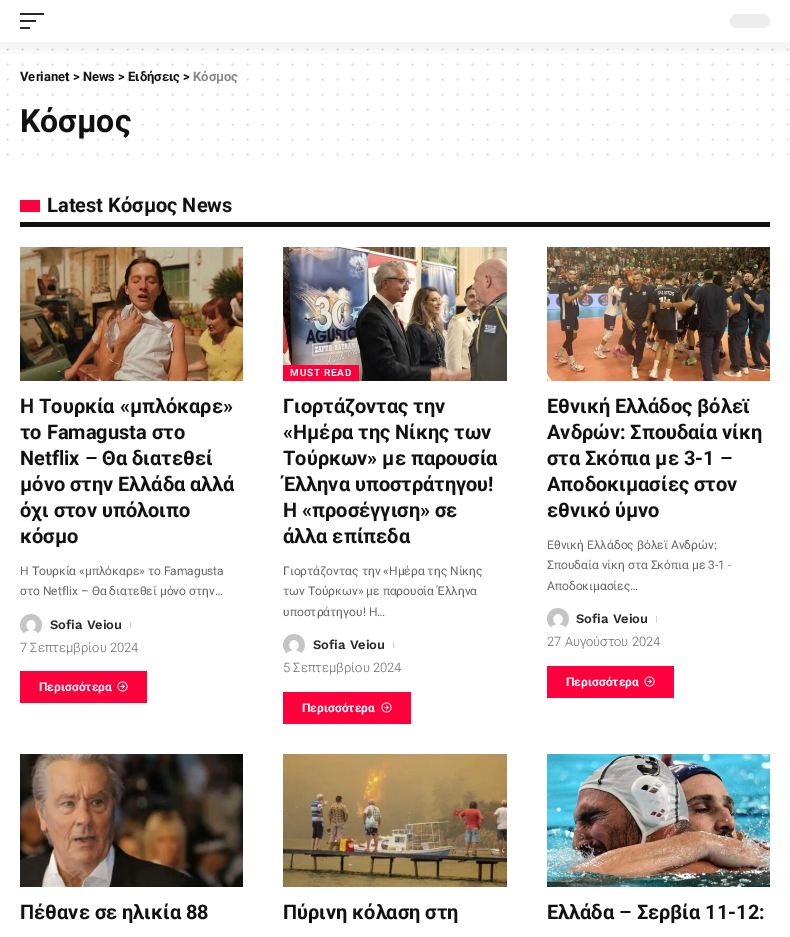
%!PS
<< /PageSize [790 937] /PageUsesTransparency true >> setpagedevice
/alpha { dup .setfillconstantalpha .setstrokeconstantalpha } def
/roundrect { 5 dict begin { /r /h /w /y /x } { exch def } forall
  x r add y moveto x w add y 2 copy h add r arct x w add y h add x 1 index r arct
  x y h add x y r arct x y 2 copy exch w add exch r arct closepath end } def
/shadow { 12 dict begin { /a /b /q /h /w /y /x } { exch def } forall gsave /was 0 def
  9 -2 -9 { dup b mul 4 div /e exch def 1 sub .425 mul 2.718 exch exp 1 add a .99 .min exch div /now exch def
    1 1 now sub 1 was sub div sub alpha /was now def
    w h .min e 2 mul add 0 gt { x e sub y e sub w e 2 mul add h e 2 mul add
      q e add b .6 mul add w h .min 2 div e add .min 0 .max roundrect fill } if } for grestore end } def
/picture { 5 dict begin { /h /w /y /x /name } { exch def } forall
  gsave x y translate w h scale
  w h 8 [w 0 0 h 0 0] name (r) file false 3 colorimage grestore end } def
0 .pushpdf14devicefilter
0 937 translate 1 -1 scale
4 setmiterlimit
1 setgray
0 0 790 937 rectfill
0.859 setgray
2 setlinewidth
1 setlinecap
[0 15] 0 setdash
newpath 7.5 49.5 moveto 787.7 49.5 lineto stroke
newpath 7.5 64.5 moveto 787.7 64.5 lineto stroke
newpath 7.5 79.5 moveto 787.7 79.5 lineto stroke
gsave
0 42 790 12 rectclip
0 setgray
0 4 790 42 0 15 0.07 shadow
grestore
0.157 setgray
20 13 24 2 1 roundrect fill
20 20 16 2 1 roundrect fill
20 27 10 2 1 roundrect fill
0.929 setgray
730 14 40 14 7 roundrect fill
0.859 setgray
newpath 7.5 94.5 moveto 787.7 94.5 lineto stroke
newpath 7.5 109.5 moveto 787.7 109.5 lineto stroke
newpath 7.5 124.5 moveto 787.7 124.5 lineto stroke
newpath 7.5 139.5 moveto 787.7 139.5 lineto stroke
newpath 7.5 154.5 moveto 787.7 154.5 lineto stroke
/Roboto-Bold [13 0 0 -13 0 0] selectfont
0.067 setgray
20 81 moveto (Verianet > News > Ειδήσεις >) show
0.533 setgray
193 81 moveto (Κόσμος) show
/Roboto-Bold [32 0 0 -32 0 0] selectfont
0.067 setgray
20 132 moveto (Κόσμος) show
20 222 750 5 rectfill
1 0 0.235 setrgbcolor
20 200 20 12 rectfill
/Roboto-Bold [20 0 0 -20 0 0] selectfont
0.067 setgray
47 212 moveto (Latest Κόσμος News) show
(img1.rgb) 20 247 223 134 picture
20 413 moveto (Η Τουρκία «μπλόκαρε») show
20 439 moveto (το Famagusta στο) show
20 465 moveto (Netflix – Θα διατεθεί) show
20 491 moveto (μόνο στην Ελλάδα αλλά) show
20 517 moveto (όχι στον υπόλοιπο) show
20 543 moveto (κόσμο) show
/Roboto-Regular [12 0 0 -12 0 0] selectfont
0.4 setgray
20 575 moveto (Η Τουρκία «μπλόκαρε» το Famagusta) show
20 595 moveto (στο Netflix – Θα διατεθεί μόνο στην…) show
(img2.rgb) 20 614 22 20 picture
/WorkSans-SemiBold [13 0 0 -13 0 0] selectfont
0.157 setgray
50 629 moveto (Sofia Veiou) show
0.82 setgray
130 622 1 6 rectfill
/Roboto-Light [13 0 0 -13 0 0] selectfont
0.4 setgray
20 652 moveto (7 Σεπτεμβρίου 2024) show
1 0 0.235 setrgbcolor
20 671 127 32 rectfill
/Roboto-Bold [12 0 0 -12 0 0] selectfont
1 setgray
39 691 moveto (Περισσότερα) show
(img3.rgb) 117 681 11 11 picture
(img4.rgb) 283 247 224 134 picture
1 0 0.235 setrgbcolor
283 365 76 16 rectfill
/Roboto-Bold [10 0 0 -10 0 0] selectfont
1 setgray
290 376 moveto 0.75 0 (MUST READ) ashow
/Roboto-Bold [20 0 0 -20 0 0] selectfont
0.067 setgray
283 413 moveto (Γιορτάζοντας την) show
283 439 moveto («Ημέρα της Νίκης των) show
283 465 moveto (Τούρκων» με παρουσία) show
283 491 moveto (Έλληνα υποστράτηγου!) show
283 517 moveto (Η «προσέγγιση» σε) show
283 543 moveto (άλλα επίπεδα) show
/Roboto-Regular [12 0 0 -12 0 0] selectfont
0.4 setgray
283 575 moveto (Γιορτάζοντας την «Ημέρα της Νίκης) show
283 595 moveto (των Τούρκων» με παρουσία Έλληνα) show
283 616 moveto (υποστράτηγου! Η…) show
(img2.rgb) 283 634 22 20 picture
/WorkSans-SemiBold [13 0 0 -13 0 0] selectfont
0.157 setgray
313 649 moveto (Sofia Veiou) show
0.82 setgray
393 642 1 6 rectfill
/Roboto-Light [13 0 0 -13 0 0] selectfont
0.4 setgray
283 672 moveto (5 Σεπτεμβρίου 2024) show
1 0 0.235 setrgbcolor
283 692 128 32 rectfill
/Roboto-Bold [12 0 0 -12 0 0] selectfont
1 setgray
302 712 moveto (Περισσότερα) show
(img3.rgb) 381 702 11 11 picture
(img5.rgb) 547 247 223 134 picture
/Roboto-Bold [20 0 0 -20 0 0] selectfont
0.067 setgray
547 413 moveto (Εθνική Ελλάδος βόλεϊ) show
547 439 moveto (Ανδρών: Σπουδαία νίκη) show
547 465 moveto (στα Σκόπια με 3-1 –) show
547 491 moveto (Αποδοκιμασίες στον) show
547 517 moveto (εθνικό ύμνο) show
/Roboto-Regular [12 0 0 -12 0 0] selectfont
0.4 setgray
547 549 moveto (Εθνική Ελλάδος βόλεϊ Ανδρών:) show
547 569 moveto (Σπουδαία νίκη στα Σκόπια με 3-1 -) show
547 590 moveto (Αποδοκιμασίες…) show
(img2.rgb) 547 608 22 20 picture
/WorkSans-SemiBold [13 0 0 -13 0 0] selectfont
0.157 setgray
576 623 moveto (Sofia Veiou) show
0.82 setgray
656 616 1 6 rectfill
/Roboto-Light [13 0 0 -13 0 0] selectfont
0.4 setgray
547 646 moveto (27 Αυγούστου 2024) show
1 0 0.235 setrgbcolor
547 666 127 32 rectfill
/Roboto-Bold [12 0 0 -12 0 0] selectfont
1 setgray
566 686 moveto (Περισσότερα) show
(img3.rgb) 644 676 11 11 picture
(img6.rgb) 20 754 223 133 picture
/Roboto-Bold [20 0 0 -20 0 0] selectfont
0.067 setgray
20 919 moveto (Πέθανε σε ηλικία 88) show
(img7.rgb) 283 754 224 133 picture
283 919 moveto (Πύρινη κόλαση στη) show
(img8.rgb) 547 754 223 133 picture
547 919 moveto (Ελλάδα – Σερβία 11-12:) show
.poppdf14devicefilter showpage
